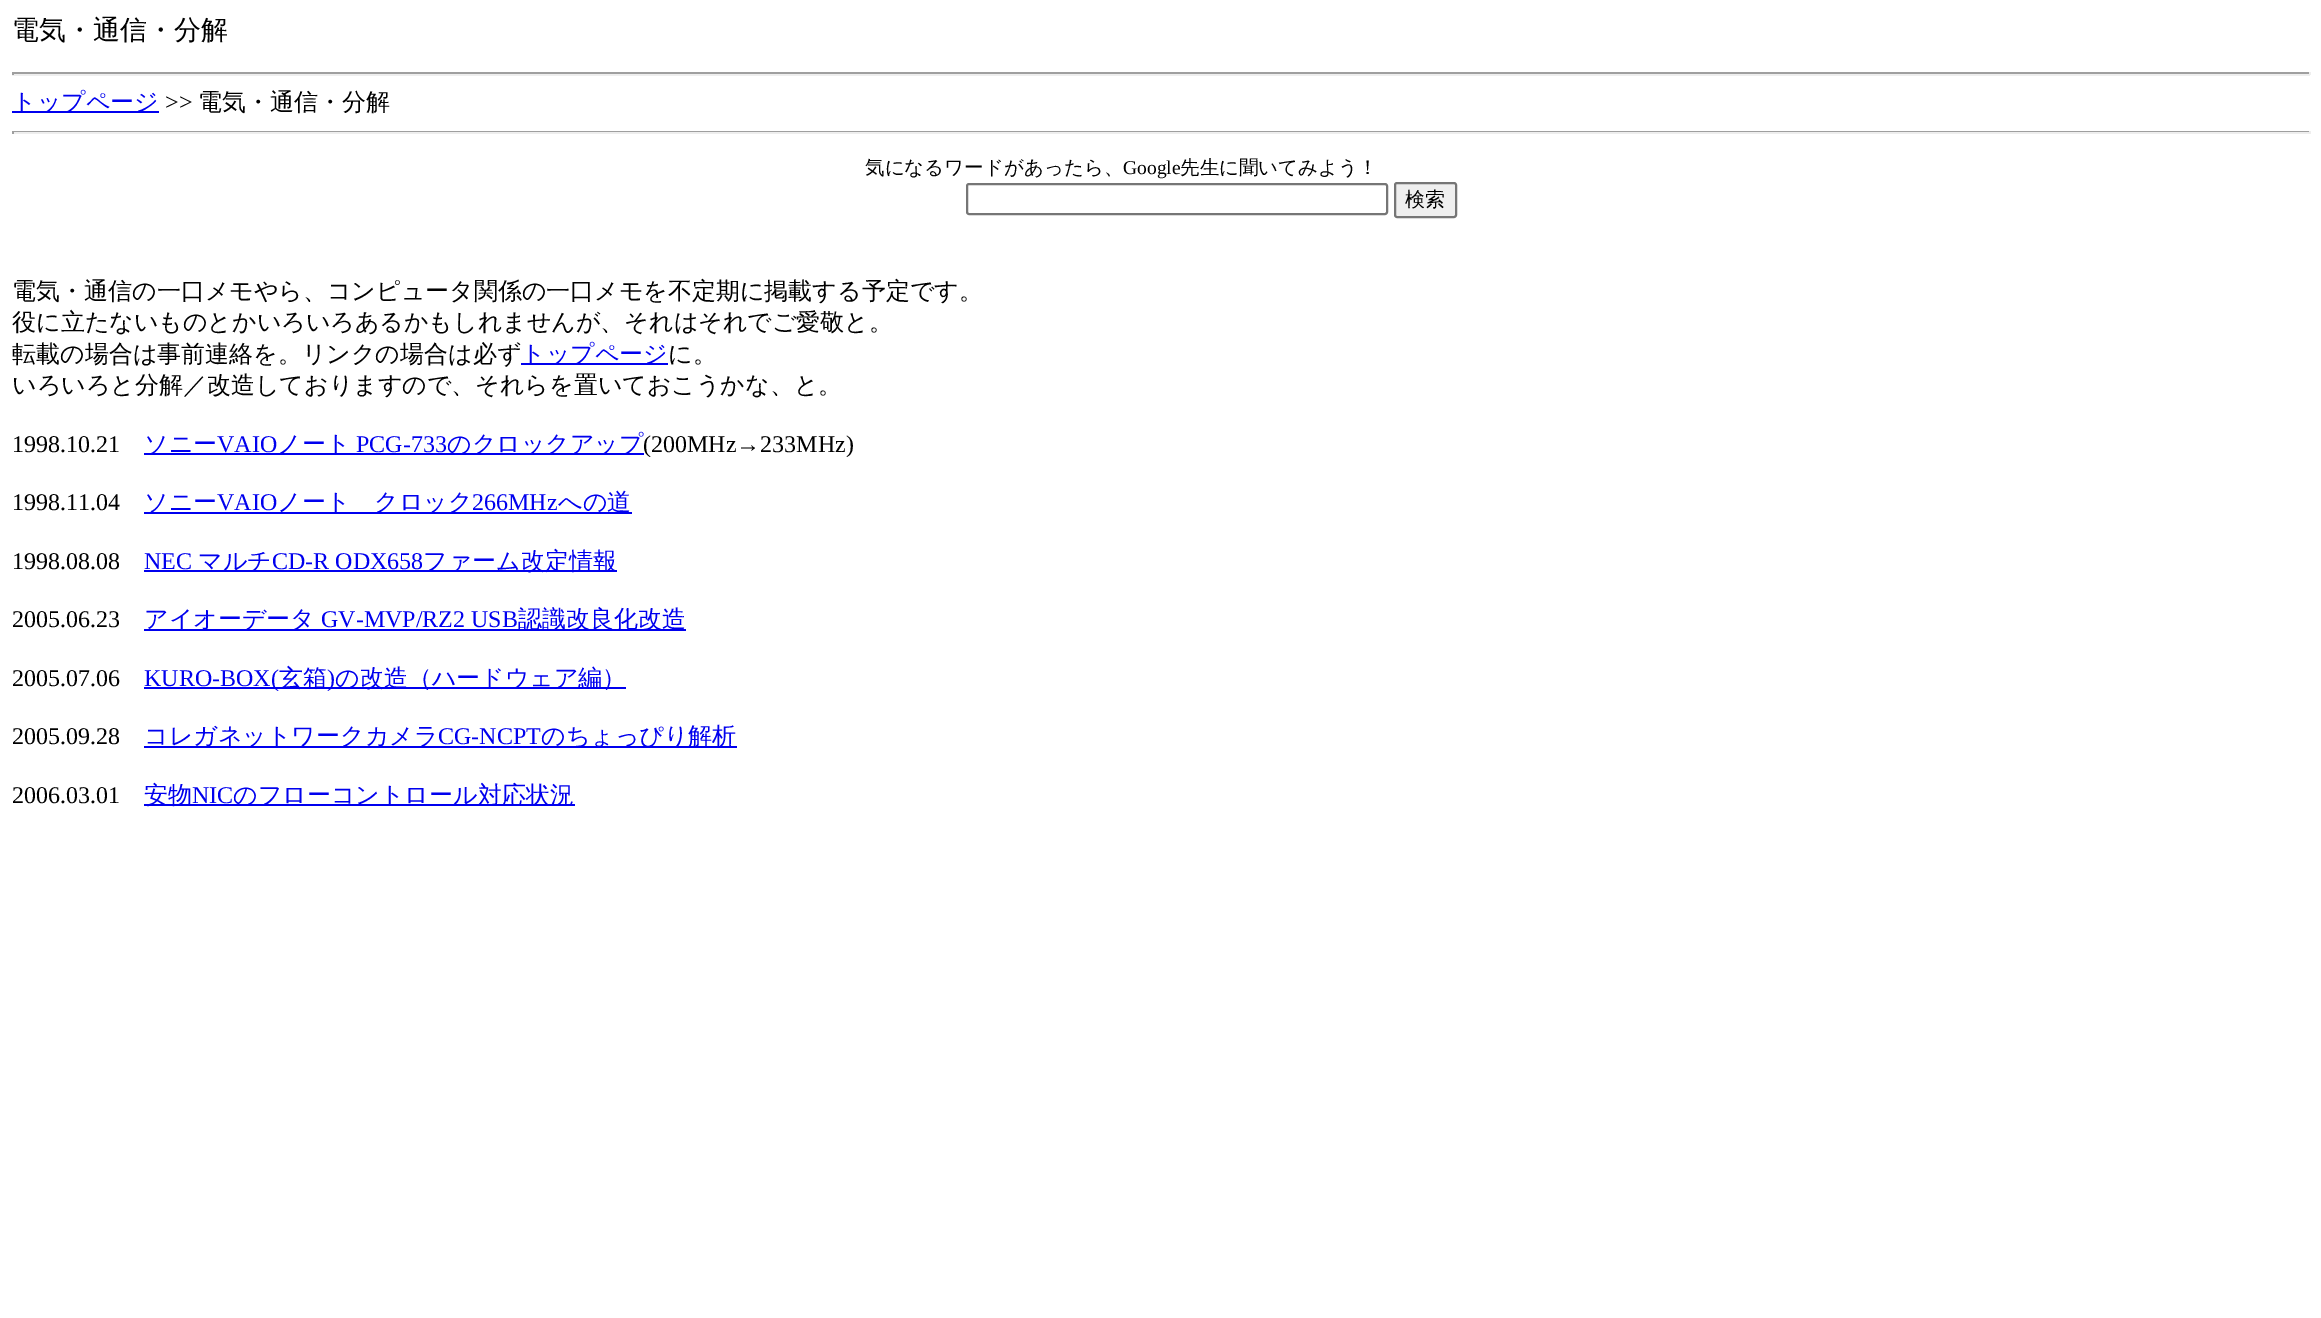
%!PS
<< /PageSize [2321 1318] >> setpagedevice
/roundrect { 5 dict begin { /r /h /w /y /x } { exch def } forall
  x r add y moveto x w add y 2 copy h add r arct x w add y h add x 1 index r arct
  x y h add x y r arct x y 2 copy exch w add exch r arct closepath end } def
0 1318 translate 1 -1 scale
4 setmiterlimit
1 setgray
0 0 2321 1318 rectfill
/WenQuanYiZenHei-Medium [27 0 0 -27 0 0] selectfont
0 setgray
12 39 moveto (電気・通信・分解) show
0.624 setgray
12 72 2298 2 rectfill
0.933 setgray
2309 72 2 3 rectfill
12 74 2298 2 rectfill
0.624 setgray
12 72 2 3 rectfill
0 0 0.933 setrgbcolor
12 111 147 2 rectfill
/WenQuanYiZenHei-Medium [24 0 0 -24 0 0] selectfont
12 110 moveto (トップページ) show
/LiberationSerif-Regular [24 0 0 -24 0 0] selectfont
0 setgray
165 110 moveto (>>) show
/WenQuanYiZenHei-Medium [24 0 0 -24 0 0] selectfont
198 110 moveto (電気・通信・分解) show
0.624 setgray
12 131 2298 1 rectfill
0.933 setgray
2309 131 2 3 rectfill
12 132 2298 2 rectfill
0.624 setgray
12 131 2 3 rectfill
/WenQuanYiZenHei-Medium [19.5 0 0 -19.5 0 0] selectfont
0 setgray
865 174 moveto (気になるワードがあったら、) show
/LiberationSerif-Regular [19.5 0 0 -19.5 0 0] selectfont
1123 174 moveto (Google) show
/WenQuanYiZenHei-Medium [19.5 0 0 -19.5 0 0] selectfont
1180 174 moveto (先生に聞いてみよう！) show
0.463 setgray
2 setlinewidth
967 184 420 30 2 roundrect stroke
0.937 setgray
1395 183 61 34 2 roundrect gsave fill grestore
0.463 setgray
stroke
/WenQuanYiZenHei-Medium [20 0 0 -20 0 0] selectfont
0 setgray
1405 206 moveto (検索) show
/WenQuanYiZenHei-Medium [24 0 0 -24 0 0] selectfont
12 299 moveto (電気・通信の一口メモやら、コンピュータ関係の一口メモを不定期に掲載する予定です。) show
12 330 moveto (役に立たないものとかいろいろあるかもしれませんが、それはそれでご愛敬と。) show
12 362 moveto (転載の場合は事前連絡を。リンクの場合は必ず) show
0 0 0.933 setrgbcolor
521 363 147 2 rectfill
521 362 moveto (トップページ) show
0 setgray
668 362 moveto (に。) show
12 393 moveto (いろいろと分解／改造しておりますので、それらを置いておこうかな、と。) show
/LiberationSerif-Regular [24 0 0 -24 0 0] selectfont
12 452 moveto (1998.10.21) show
0 0 0.933 setrgbcolor
144 453 500 2 rectfill
/WenQuanYiZenHei-Medium [24 0 0 -24 0 0] selectfont
144 452 moveto (ソニー) show
/LiberationSerif-Regular [24 0 0 -24 0 0] selectfont
217 452 moveto (VAIO) show
/WenQuanYiZenHei-Medium [24 0 0 -24 0 0] selectfont
277 452 moveto (ノート) show
/LiberationSerif-Regular [24 0 0 -24 0 0] selectfont
356 452 moveto (PCG-733) show
/WenQuanYiZenHei-Medium [24 0 0 -24 0 0] selectfont
447 452 moveto (のクロックアップ) show
/LiberationSerif-Regular [24 0 0 -24 0 0] selectfont
0 setgray
643 452 moveto (\(200MHz→233MHz\)) show
12 510 moveto (1998.11.04) show
0 0 0.933 setrgbcolor
144 512 488 2 rectfill
/WenQuanYiZenHei-Medium [24 0 0 -24 0 0] selectfont
144 510 moveto (ソニー) show
/LiberationSerif-Regular [24 0 0 -24 0 0] selectfont
217 510 moveto (VAIO) show
/WenQuanYiZenHei-Medium [24 0 0 -24 0 0] selectfont
277 510 moveto (ノート　クロック) show
/LiberationSerif-Regular [24 0 0 -24 0 0] selectfont
472 510 moveto (266MHz) show
/WenQuanYiZenHei-Medium [24 0 0 -24 0 0] selectfont
558 510 moveto (への道) show
/LiberationSerif-Regular [24 0 0 -24 0 0] selectfont
0 setgray
12 569 moveto (1998.08.08) show
0 0 0.933 setrgbcolor
144 569 moveto (NEC) show
144 570 473 2 rectfill
/WenQuanYiZenHei-Medium [24 0 0 -24 0 0] selectfont
198 569 moveto (マルチ) show
/LiberationSerif-Regular [24 0 0 -24 0 0] selectfont
272 569 moveto (CD-R ODX658) show
/WenQuanYiZenHei-Medium [24 0 0 -24 0 0] selectfont
423 569 moveto (ファーム改定情報) show
/LiberationSerif-Regular [24 0 0 -24 0 0] selectfont
0 setgray
12 627 moveto (2005.06.23) show
0 0 0.933 setrgbcolor
144 629 542 2 rectfill
/WenQuanYiZenHei-Medium [24 0 0 -24 0 0] selectfont
144 627 moveto (アイオーデータ) show
/LiberationSerif-Regular [24 0 0 -24 0 0] selectfont
321 627 moveto (GV-MVP/RZ2 USB) show
/WenQuanYiZenHei-Medium [24 0 0 -24 0 0] selectfont
518 627 moveto (認識改良化改造) show
/LiberationSerif-Regular [24 0 0 -24 0 0] selectfont
0 setgray
12 686 moveto (2005.07.06) show
0 0 0.933 setrgbcolor
144 687 482 2 rectfill
144 686 moveto (KURO-BOX\() show
/WenQuanYiZenHei-Medium [24 0 0 -24 0 0] selectfont
279 686 moveto (玄箱) show
/LiberationSerif-Regular [24 0 0 -24 0 0] selectfont
327 686 moveto (\)) show
/WenQuanYiZenHei-Medium [24 0 0 -24 0 0] selectfont
335 686 moveto (の改造（ハードウェア編）) show
/LiberationSerif-Regular [24 0 0 -24 0 0] selectfont
0 setgray
12 744 moveto (2005.09.28) show
0 0 0.933 setrgbcolor
144 746 593 2 rectfill
/WenQuanYiZenHei-Medium [24 0 0 -24 0 0] selectfont
144 744 moveto (コレガネットワークカメラ) show
/LiberationSerif-Regular [24 0 0 -24 0 0] selectfont
438 744 moveto (CG-NCPT) show
/WenQuanYiZenHei-Medium [24 0 0 -24 0 0] selectfont
541 744 moveto (のちょっぴり解析) show
/LiberationSerif-Regular [24 0 0 -24 0 0] selectfont
0 setgray
12 803 moveto (2006.03.01) show
0 0 0.933 setrgbcolor
144 804 431 2 rectfill
/WenQuanYiZenHei-Medium [24 0 0 -24 0 0] selectfont
144 803 moveto (安物) show
/LiberationSerif-Regular [24 0 0 -24 0 0] selectfont
192 803 moveto (NIC) show
/WenQuanYiZenHei-Medium [24 0 0 -24 0 0] selectfont
233 803 moveto (のフローコントロール対応状況) show
showpage
